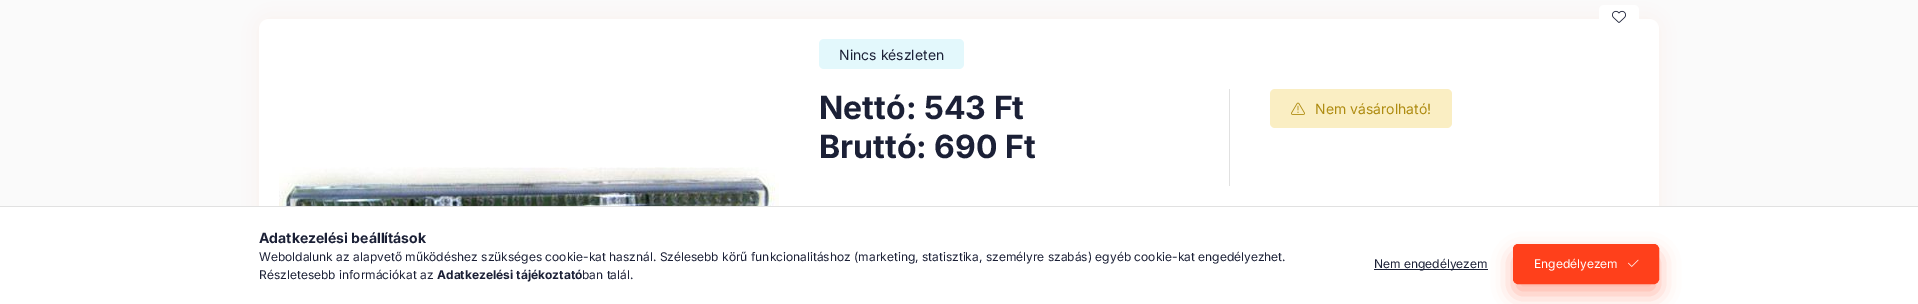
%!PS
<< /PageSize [1918 304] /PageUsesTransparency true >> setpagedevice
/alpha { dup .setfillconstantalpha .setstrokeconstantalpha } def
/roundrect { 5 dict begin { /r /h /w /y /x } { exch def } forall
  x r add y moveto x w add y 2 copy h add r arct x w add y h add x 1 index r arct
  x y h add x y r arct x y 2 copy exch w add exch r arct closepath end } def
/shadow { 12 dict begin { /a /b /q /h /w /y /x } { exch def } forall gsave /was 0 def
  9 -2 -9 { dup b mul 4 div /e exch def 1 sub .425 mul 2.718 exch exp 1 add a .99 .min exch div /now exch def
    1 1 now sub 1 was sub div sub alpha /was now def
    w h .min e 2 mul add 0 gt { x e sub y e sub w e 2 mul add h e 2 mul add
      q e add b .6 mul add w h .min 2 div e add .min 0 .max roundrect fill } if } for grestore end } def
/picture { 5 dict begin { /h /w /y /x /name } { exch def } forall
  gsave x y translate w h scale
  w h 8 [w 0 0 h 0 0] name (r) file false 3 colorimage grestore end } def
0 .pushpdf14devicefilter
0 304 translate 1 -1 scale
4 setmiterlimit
0.98 setgray
0 0 1918 304 rectfill
1 0.251 0.106 setrgbcolor
259 19 1400 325 10 10 0.05 shadow
1 setgray
259 19 1400 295 10 roundrect fill
1599 5 40 24 5 roundrect fill
(img1.rgb) 1612 10 14 13 picture
0.89 0.973 0.988 setrgbcolor
819 39 145 30 5 roundrect fill
/Inter-Regular [14 0 0 -14 0 0] selectfont
0.106 0.125 0.212 setrgbcolor
839 60 moveto (Nincs készleten) show
/Inter-Bold [32 0 0 -32 0 0] selectfont
819 119 moveto (Nettó: 543 Ft) show
819 158 moveto (Bruttó: 690 Ft) show
0.882 setgray
1229 89 1 97 rectfill
0.98 0.933 0.765 setrgbcolor
1270 89 182 39 5 roundrect fill
(img2.rgb) 1291 102 14 13 picture
/Inter-Regular [14 0 0 -14 0 0] selectfont
0.682 0.545 0.063 setrgbcolor
1315 114 moveto (Nem vásárolható!) show
(img3.rgb) 279 167 500 39 picture
1 setgray
0 207 1918 97 rectfill
0.882 setgray
0 206 1918 1 rectfill
/Inter-Bold [14 0 0 -14 0 0] selectfont
0.106 0.125 0.212 setrgbcolor
259 243 moveto (Adatkezelési beállítások) show
/Inter-Regular [12 0 0 -12 0 0] selectfont
259 261 moveto (Weboldalunk az alapvető működéshez szükséges cookie-kat használ. Szélesebb körű funkcionalitáshoz \(marketing, statisztika, személyre szabás\) egyéb cookie-kat engedélyezhet.) show
259 279 moveto (Részletesebb információkat az) show
/Inter-Bold [12 0 0 -12 0 0] selectfont
437 279 moveto (Adatkezelési tájékoztató) show
/Inter-Regular [12 0 0 -12 0 0] selectfont
582 279 moveto (ban talál.) show
1374 269 114 1 rectfill
1374 268 moveto (Nem engedélyezem) show
1 0.251 0.106 setrgbcolor
1513 254 146 40 5 10 0.4 shadow
1513.5 244.5 145 39 4.5 roundrect gsave fill grestore
stroke
1 setgray
1534 268 moveto (Engedélyezem) show
(img4.rgb) 1628 259 11 8 picture
.poppdf14devicefilter showpage
